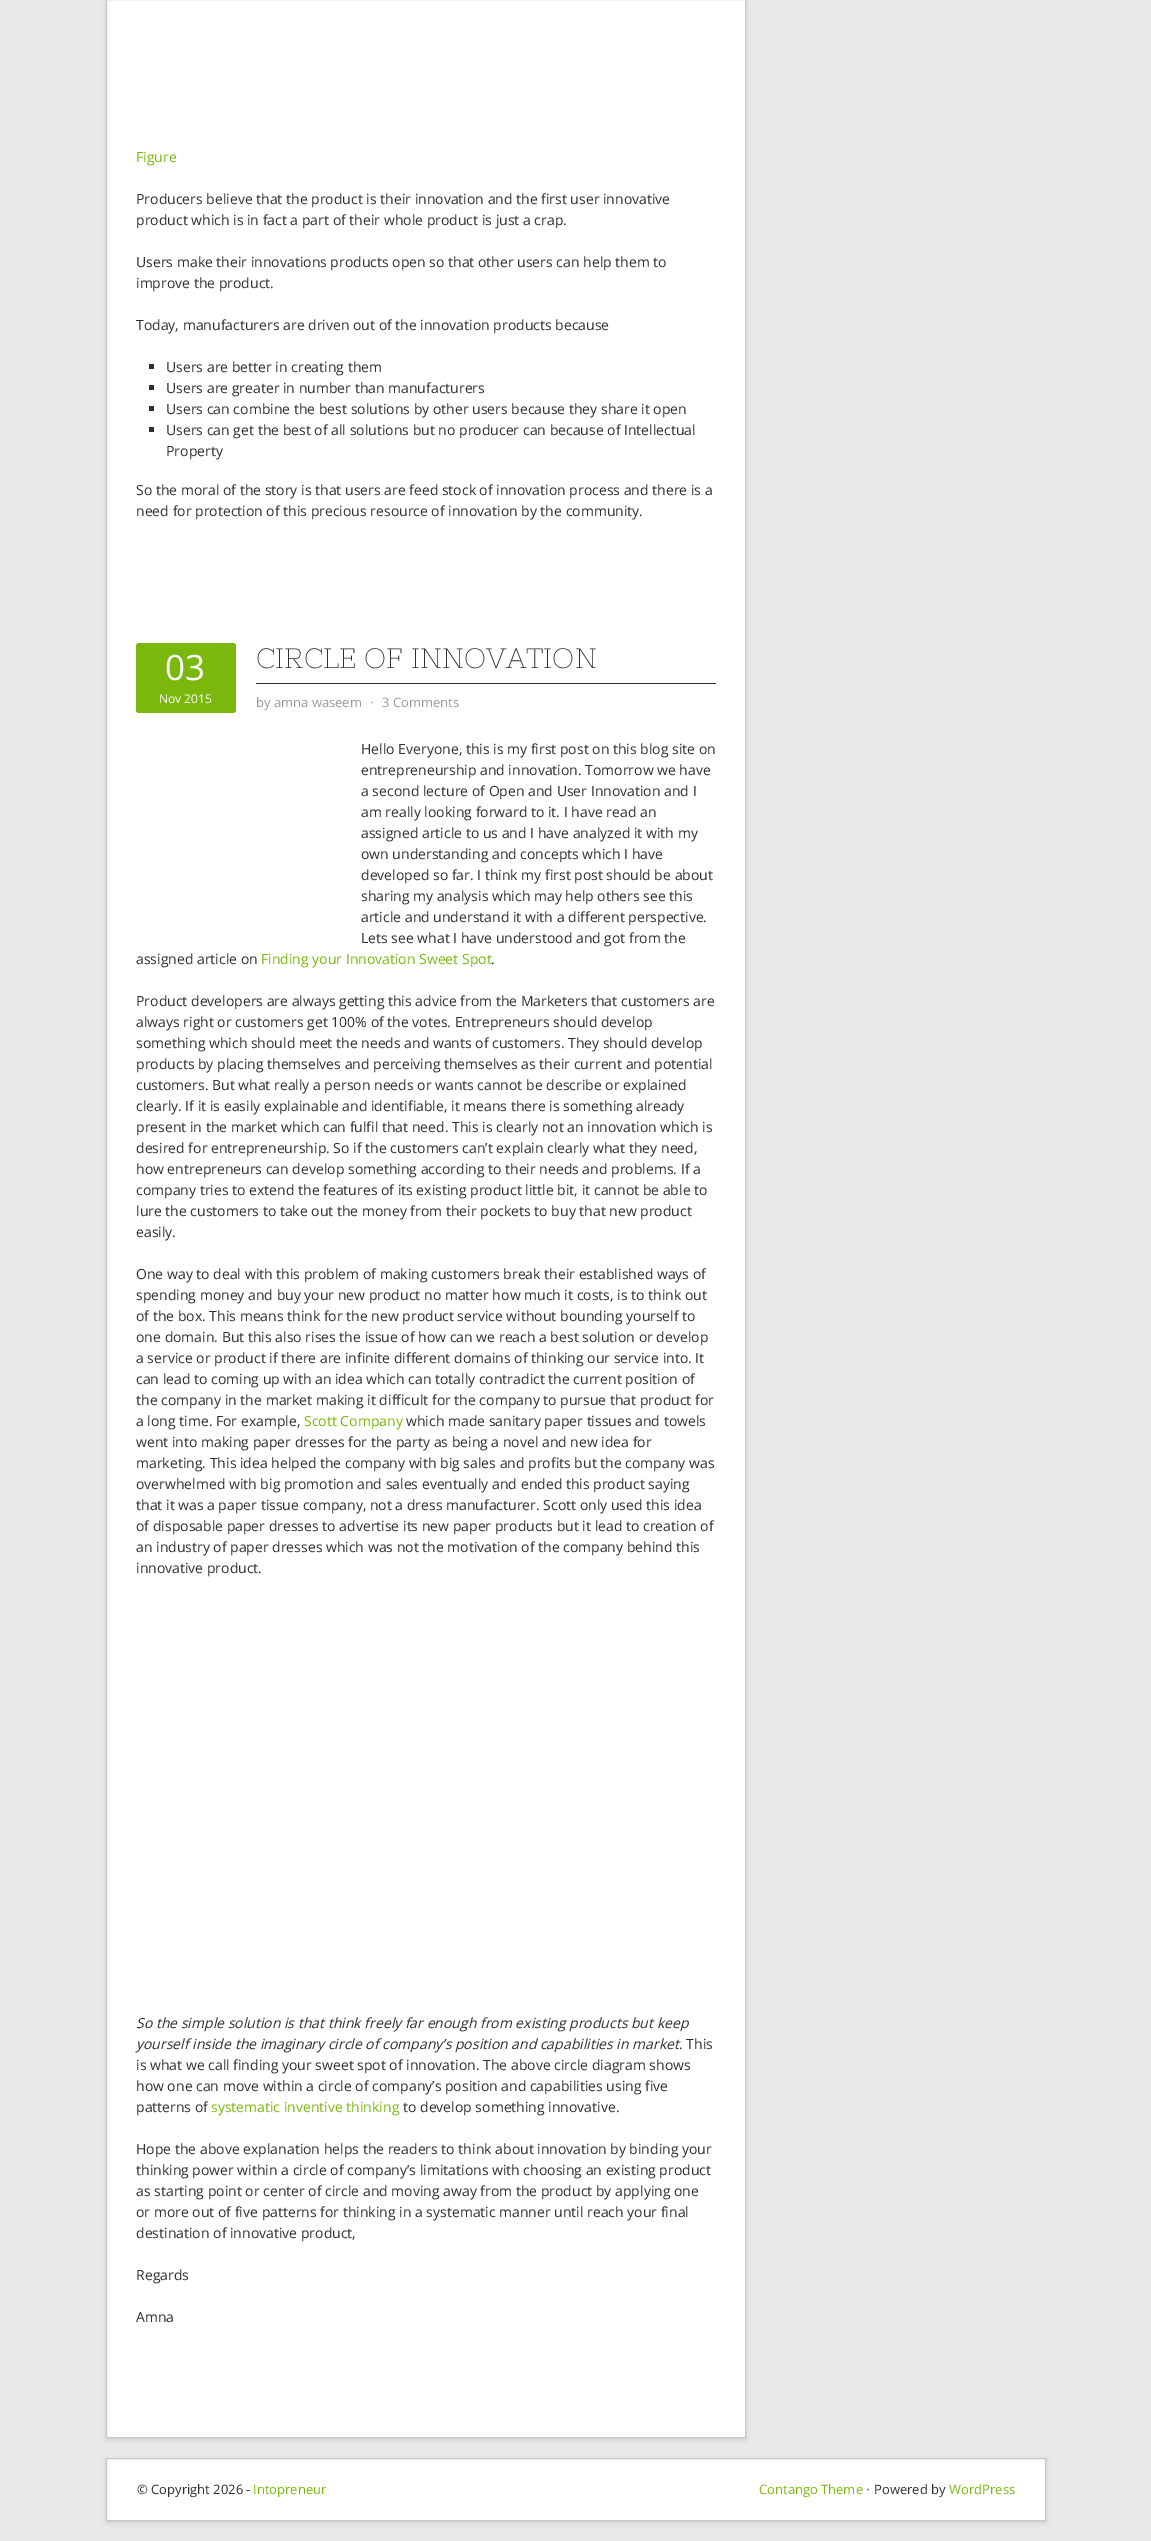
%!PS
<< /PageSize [1151 2541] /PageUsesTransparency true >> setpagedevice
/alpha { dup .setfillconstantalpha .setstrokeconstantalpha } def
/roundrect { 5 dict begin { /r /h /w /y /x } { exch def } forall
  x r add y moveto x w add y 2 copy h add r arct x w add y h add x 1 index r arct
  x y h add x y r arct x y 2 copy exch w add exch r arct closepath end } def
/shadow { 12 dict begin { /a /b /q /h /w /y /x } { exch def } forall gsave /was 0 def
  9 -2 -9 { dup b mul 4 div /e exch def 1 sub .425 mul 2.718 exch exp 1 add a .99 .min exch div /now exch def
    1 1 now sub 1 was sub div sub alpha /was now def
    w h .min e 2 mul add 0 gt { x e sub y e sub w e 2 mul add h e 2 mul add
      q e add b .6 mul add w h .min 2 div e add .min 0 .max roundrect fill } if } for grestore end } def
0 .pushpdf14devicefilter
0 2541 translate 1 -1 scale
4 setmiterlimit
0.914 setgray
0 0 1151 2541 rectfill
0.196 setgray
106 -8 640 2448 0 2.5 0.15 shadow
1 setgray
newpath 106.5 -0.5 moveto 745.5 -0.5 lineto 745.5 2437.5 lineto 106.5 2437.5 lineto closepath gsave fill grestore
0.784 setgray
stroke
/OpenSans-Regular [14 0 0 -14 0 0] selectfont
0.478 0.722 0.055 setrgbcolor
136 162 moveto (Figure) show
0.184 setgray
136 204 moveto (Producers believe that the product is their innovation and the first user innovative) show
136 225 moveto (product which is in fact a part of their whole product is just a crap.) show
136 267 moveto (Users make their innovations products open so that other users can help them to) show
136 288 moveto (improve the product.) show
136 330 moveto (Today, manufacturers are driven out of the innovation products because) show
149 364 5 5 rectfill
166 372 moveto (Users are better in creating them) show
149 385 5 5 rectfill
166 393 moveto (Users are greater in number than manufacturers) show
149 406 5 5 rectfill
166 414 moveto (Users can combine the best solutions by other users because they share it open) show
149 427 5 5 rectfill
166 435 moveto (Users can get the best of all solutions but no producer can because of Intellectual) show
166 456 moveto (Property) show
136 495 moveto (So the moral of the story is that users are feed stock of innovation process and there is a) show
136 516 moveto (need for protection of this precious resource of innovation by the community.) show
0.478 0.722 0.055 setrgbcolor
136 643 100 70 3 roundrect fill
/OpenSans-Regular [35 0 0 -35 0 0] selectfont
1 setgray
165 680 moveto (03) show
/OpenSans-Regular [12 0 0 -12 0 0] selectfont
159 703 moveto (Nov 2015) show
0.184 setgray
256 683 460 1 rectfill
/NixieOne-Regular [28 0 0 -28 0 0] selectfont
256 668 moveto (CIRCLE OF INNOVATION) show
/OpenSans-Regular [13 0 0 -13 0 0] selectfont
0.6 setgray
256 707 moveto (by amna waseem) show
/DejaVuSans-Regular [13 0 0 -13 0 0] selectfont
370 707 moveto (⋅) show
/OpenSans-Regular [13 0 0 -13 0 0] selectfont
382 707 moveto (3 Comments) show
/OpenSans-Regular [14 0 0 -14 0 0] selectfont
0.184 setgray
361 754 moveto (Hello Everyone, this is my first post on this blog site on) show
361 775 moveto (entrepreneurship and innovation. Tomorrow we have) show
361 796 moveto (a second lecture of Open and User Innovation and I) show
361 817 moveto (am really looking forward to it. I have read an) show
361 838 moveto (assigned article to us and I have analyzed it with my) show
361 859 moveto (own understanding and concepts which I have) show
361 880 moveto (developed so far. I think my first post should be about) show
361 901 moveto (sharing my analysis which may help others see this) show
361 922 moveto (article and understand it with a different perspective.) show
361 943 moveto (Lets see what I have understood and got from the) show
136 964 moveto (assigned article on) show
0.478 0.722 0.055 setrgbcolor
261 964 moveto (Finding your Innovation Sweet Spot) show
0.184 setgray
491 964 moveto (.) show
136 1006 moveto (Product developers are always getting this advice from the Marketers that customers are) show
136 1027 moveto (always right or customers get 100% of the votes. Entrepreneurs should develop) show
136 1048 moveto (something which should meet the needs and wants of customers. They should develop) show
136 1069 moveto (products by placing themselves and perceiving themselves as their current and potential) show
136 1090 moveto (customers. But what really a person needs or wants cannot be describe or explained) show
136 1111 moveto (clearly. If it is easily explainable and identifiable, it means there is something already) show
136 1132 moveto (present in the market which can fulfil that need. This is clearly not an innovation which is) show
136 1153 moveto (desired for entrepreneurship. So if the customers can’t explain clearly what they need,) show
136 1174 moveto (how entrepreneurs can develop something according to their needs and problems. If a) show
136 1195 moveto (company tries to extend the features of its existing product little bit, it cannot be able to) show
136 1216 moveto (lure the customers to take out the money from their pockets to buy that new product) show
136 1237 moveto (easily.) show
136 1279 moveto (One way to deal with this problem of making customers break their established ways of) show
136 1300 moveto (spending money and buy your new product no matter how much it costs, is to think out) show
136 1321 moveto (of the box. This means think for the new product service without bounding yourself to) show
136 1342 moveto (one domain. But this also rises the issue of how can we reach a best solution or develop) show
136 1363 moveto (a service or product if there are infinite different domains of thinking our service into. It) show
136 1384 moveto (can lead to coming up with an idea which can totally contradict the current position of) show
136 1405 moveto (the company in the market making it difficult for the company to pursue that product for) show
136 1426 moveto (a long time. For example,) show
0.478 0.722 0.055 setrgbcolor
304 1426 moveto (Scott Company) show
0.184 setgray
406 1426 moveto (which made sanitary paper tissues and towels) show
136 1447 moveto (went into making paper dresses for the party as being a novel and new idea for) show
136 1468 moveto (marketing. This idea helped the company with big sales and profits but the company was) show
136 1489 moveto (overwhelmed with big promotion and sales eventually and ended this product saying) show
136 1510 moveto (that it was a paper tissue company, not a dress manufacturer. Scott only used this idea) show
136 1531 moveto (of disposable paper dresses to advertise its new paper products but it lead to creation of) show
136 1552 moveto (an industry of paper dresses which was not the motivation of the company behind this) show
136 1573 moveto (innovative product.) show
/OpenSans-Italic [14 0 0 -14 0 0] selectfont
136 2028 moveto (So the simple solution is that think freely far enough from existing products but keep) show
136 2049 moveto (yourself inside the imaginary circle of company’s position and capabilities in market) show
/OpenSans-Regular [14 0 0 -14 0 0] selectfont
679 2049 moveto (. This) show
136 2070 moveto (is what we call finding your sweet spot of innovation. The above circle diagram shows) show
136 2091 moveto (how one can move within a circle of company’s position and capabilities using five) show
136 2112 moveto (patterns of) show
0.478 0.722 0.055 setrgbcolor
211 2112 moveto (systematic inventive thinking) show
0.184 setgray
403 2112 moveto (to develop something innovative.) show
136 2154 moveto (Hope the above explanation helps the readers to think about innovation by binding your) show
136 2175 moveto (thinking power within a circle of company’s limitations with choosing an existing product) show
136 2196 moveto (as starting point or center of circle and moving away from the product by applying one) show
136 2217 moveto (or more out of five patterns for thinking in a systematic manner until reach your final) show
136 2238 moveto (destination of innovative product,) show
136 2280 moveto (Regards) show
136 2322 moveto (Amna) show
0.196 setgray
106 2460 940 63 0 2.5 0.15 shadow
1 setgray
newpath 106.5 2458.5 moveto 1045.5 2458.5 lineto 1045.5 2520.5 lineto 106.5 2520.5 lineto closepath gsave fill grestore
0.784 setgray
stroke
/OpenSans-Regular [13 0 0 -13 0 0] selectfont
0.184 setgray
137 2494 moveto (© Copyright 2026 -) show
0.478 0.722 0.055 setrgbcolor
253 2494 moveto (Intopreneur) show
759 2494 moveto (Contango Theme) show
/DejaVuSans-Regular [13 0 0 -13 0 0] selectfont
0.184 setgray
866 2494 moveto (⋅) show
/OpenSans-Regular [13 0 0 -13 0 0] selectfont
874 2494 moveto (Powered by) show
0.478 0.722 0.055 setrgbcolor
949 2494 moveto (WordPress) show
.poppdf14devicefilter showpage
